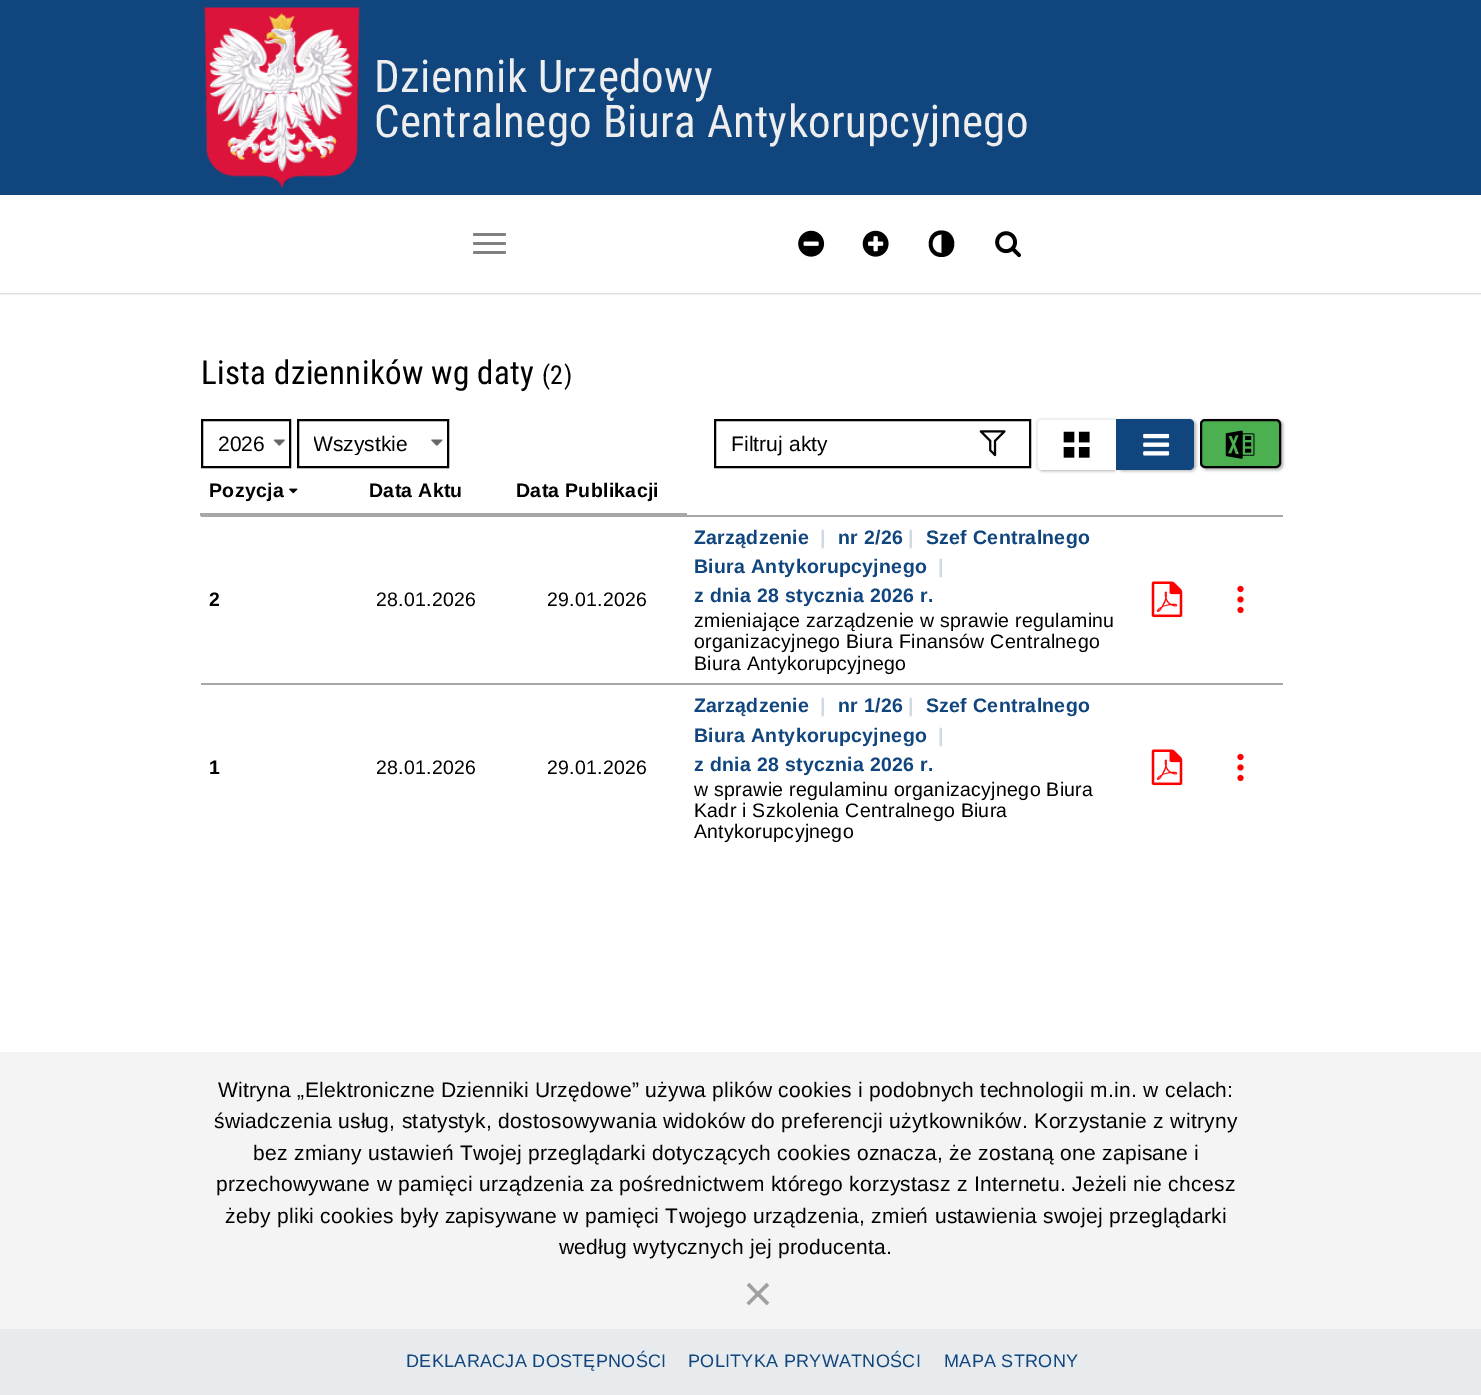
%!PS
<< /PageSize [1481 1395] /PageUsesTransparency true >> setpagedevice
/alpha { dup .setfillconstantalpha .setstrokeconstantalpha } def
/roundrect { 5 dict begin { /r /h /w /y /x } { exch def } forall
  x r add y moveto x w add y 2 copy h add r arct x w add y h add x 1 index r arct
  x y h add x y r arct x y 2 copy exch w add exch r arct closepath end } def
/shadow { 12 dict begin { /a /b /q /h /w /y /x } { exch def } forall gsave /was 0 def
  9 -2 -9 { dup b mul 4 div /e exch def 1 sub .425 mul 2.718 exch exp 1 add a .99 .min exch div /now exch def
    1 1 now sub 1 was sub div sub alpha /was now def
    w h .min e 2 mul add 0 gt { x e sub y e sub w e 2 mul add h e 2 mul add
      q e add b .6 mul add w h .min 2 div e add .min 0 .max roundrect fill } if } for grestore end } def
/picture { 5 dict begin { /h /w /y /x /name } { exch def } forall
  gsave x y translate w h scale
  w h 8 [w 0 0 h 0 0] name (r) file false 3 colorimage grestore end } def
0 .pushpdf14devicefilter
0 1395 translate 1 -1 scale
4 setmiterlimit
1 setgray
0 0 1481 1395 rectfill
0.063 0.271 0.49 setrgbcolor
0 0 1481 195 rectfill
(img1.rgb) 204 7 156 181 picture
/RobotoCondensed-Regular [45 0 0 -45 0 0] selectfont
0.933 setgray
374 92 moveto 0.3 0 (Dziennik Urzędowy) ashow
374 137 moveto 0.3 0 (Centralnego Biura Antykorupcyjnego) ashow
gsave
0 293 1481 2 rectclip
0 setgray
0 197 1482 96 0 1.5 0.3 shadow
grestore
0.502 setgray
473 233 33 3 1.5 roundrect fill
473 242 33 3 1.5 roundrect fill
473 251 33 3 1.5 roundrect fill
(img2.rgb) 798 230 27 27 picture
(img3.rgb) 862 230 27 27 picture
0 setgray
newpath 941.5 257 moveto 924.5 257 924.5 230.5 941.5 230.5 curveto 958.5 230.5 958.5 257 941.5 257 curveto closepath 941.5 234.5 moveto 929.5 234.5 929.5 253 941.5 253 curveto closepath fill
(img4.rgb) 995 231 26 27 picture
1 setgray
0 291 1481 2 rectfill
/RobotoCondensed-Regular [33 0 0 -33 0 0] selectfont
0 setgray
201 384 moveto 0.3 0 (Lista dzienników wg daty) ashow
/RobotoCondensed-Regular [26 0 0 -26 0 0] selectfont
542 384 moveto 0.3 0 (\(2\)) ashow
(img5.rgb) 273 439 12 8 picture
2 setlinewidth
202 420 88 47 rectstroke
/LiberationSans-Regular [21 0 0 -21 0 0] selectfont
218 451 moveto (2026) show
(img6.rgb) 431 439 12 8 picture
298 420 150 47 rectstroke
gsave
314 434 109 21 rectclip
313 451 moveto (Wszystkie) show
grestore
715 420 315 47 rectstroke
731 451 moveto 0.1 0 (Filtruj akty) ashow
(img7.rgb) 979 430 27 27 picture
1038 420 80 51 5 1.5 0.3 shadow
1 setgray
newpath 1042 419 moveto 1116 419 lineto 1116 470 lineto 1042 470 lineto 1039 470 1037 468 1037 465 curveto 1037 424 lineto 1037 421 1039 419 1042 419 curveto closepath fill
0.933 setgray
newpath 1041 418 moveto 1116 418 lineto 1116 470 lineto 1041 470 lineto 1039 470 1036 467 1036 465 curveto 1036 423 lineto 1036 421 1039 418 1041 418 curveto closepath 1041 420 moveto 1116 420 lineto 1116 470 lineto 1041 470 lineto 1039 470 1038 467 1038 465 curveto 1038 423 lineto 1038 421 1039 420 1041 420 curveto closepath eofill
(img8.rgb) 1063 431 27 27 picture
0 setgray
1118 420 78 51 5 1.5 0.3 shadow
0.063 0.271 0.49 setrgbcolor
newpath 1116 419 moveto 1189 419 lineto 1192 419 1194 421 1194 424 curveto 1194 465 lineto 1194 468 1192 470 1189 470 curveto 1116 470 lineto closepath fill
(img9.rgb) 1143 433 27 23 picture
0 setgray
1202 420 81 50 5 1.5 0.3 shadow
0.298 0.686 0.314 setrgbcolor
1201 420 79 47 4 roundrect gsave fill grestore
0 setgray
stroke
(img10.rgb) 1225 430 30 29 picture
/LiberationSans-Bold [19.5 0 0 -19.5 0 0] selectfont
209 497 moveto 0.3 0 (Pozycja) ashow
(img11.rgb) 289 488 9 6 picture
369 497 moveto 0.3 0 (Data Aktu) ashow
0.655 setgray
686 515 597 2 rectfill
200 513 487 3 rectfill
0 setgray
516 497 moveto 0.3 0 (Data Publikacji) ashow
(img12.rgb) 1151 581 32 37 picture
(img13.rgb) 1237 585 7 29 picture
209 606 moveto 0.3 0 (2) ashow
/LiberationSans-Regular [19.5 0 0 -19.5 0 0] selectfont
376 606 moveto 0.3 0 (28.01.2026) ashow
0.655 setgray
201 516 486 1 rectfill
0 setgray
547 606 moveto 0.3 0 (29.01.2026) ashow
/LiberationSans-Bold [19.5 0 0 -19.5 0 0] selectfont
0.063 0.271 0.49 setrgbcolor
694 544 moveto 0.3 0 (Zarządzenie) ashow
0.812 0.855 0.898 setrgbcolor
820 544 moveto 0.3 0 (|) ashow
0.063 0.271 0.49 setrgbcolor
926 544 moveto 0.3 0 (Szef Centralnego) ashow
694 573 moveto 0.3 0 (Biura Antykorupcyjnego) ashow
0.812 0.855 0.898 setrgbcolor
938 573 moveto 0.3 0 (|) ashow
0.063 0.271 0.49 setrgbcolor
838 544 moveto 0.3 0 (nr 2/26) ashow
0.812 0.855 0.898 setrgbcolor
908 544 moveto 0.3 0 (|) ashow
0.063 0.271 0.49 setrgbcolor
694 602 moveto 0.3 0 (z dnia 28 stycznia 2026 r.) ashow
/LiberationSans-Regular [19.5 0 0 -19.5 0 0] selectfont
0 setgray
694 627 moveto 0.3 0 (zmieniające zarządzenie w sprawie regulaminu) ashow
694 648 moveto 0.3 0 (organizacyjnego Biura Finansów Centralnego) ashow
694 670 moveto 0.3 0 (Biura Antykorupcyjnego) ashow
0.655 setgray
201 683 1082 2 rectfill
(img12.rgb) 1151 749 32 37 picture
(img13.rgb) 1237 753 7 29 picture
/LiberationSans-Bold [19.5 0 0 -19.5 0 0] selectfont
0 setgray
209 774 moveto 0.3 0 (1) ashow
/LiberationSans-Regular [19.5 0 0 -19.5 0 0] selectfont
376 774 moveto 0.3 0 (28.01.2026) ashow
547 774 moveto 0.3 0 (29.01.2026) ashow
/LiberationSans-Bold [19.5 0 0 -19.5 0 0] selectfont
0.063 0.271 0.49 setrgbcolor
694 712 moveto 0.3 0 (Zarządzenie) ashow
0.812 0.855 0.898 setrgbcolor
820 712 moveto 0.3 0 (|) ashow
0.063 0.271 0.49 setrgbcolor
926 712 moveto 0.3 0 (Szef Centralnego) ashow
694 742 moveto 0.3 0 (Biura Antykorupcyjnego) ashow
0.812 0.855 0.898 setrgbcolor
938 742 moveto 0.3 0 (|) ashow
0.063 0.271 0.49 setrgbcolor
838 712 moveto 0.3 0 (nr 1/26) ashow
0.812 0.855 0.898 setrgbcolor
908 712 moveto 0.3 0 (|) ashow
0.063 0.271 0.49 setrgbcolor
694 771 moveto 0.3 0 (z dnia 28 stycznia 2026 r.) ashow
/LiberationSans-Regular [19.5 0 0 -19.5 0 0] selectfont
0 setgray
694 796 moveto 0.3 0 (w sprawie regulaminu organizacyjnego Biura) ashow
694 817 moveto 0.3 0 (Kadr i Szkolenia Centralnego Biura) ashow
694 838 moveto 0.3 0 (Antykorupcyjnego) ashow
0.957 setgray
0 1052 1481 277 rectfill
/LiberationSans-Regular [21 0 0 -21 0 0] selectfont
0 setgray
218 1097 moveto 0.3 0 (Witryna „Elektroniczne Dzienniki Urzędowe” używa plików cookies i podobnych technologii m.in. w celach:) ashow
214 1128 moveto 0.3 0 (świadczenia usług, statystyk, dostosowywania widoków do preferencji użytkowników. Korzystanie z witryny) ashow
253 1160 moveto 0.3 0 (bez zmiany ustawień Twojej przeglądarki dotyczących cookies oznacza, że zostaną one zapisane i) ashow
216 1191 moveto 0.3 0 (przechowywane w pamięci urządzenia za pośrednictwem którego korzystasz z Internetu. Jeżeli nie chcesz) ashow
225 1223 moveto 0.3 0 (żeby pliki cookies były zapisywane w pamięci Twojego urządzenia, zmień ustawienia swojej przeglądarki) ashow
559 1254 moveto 0.3 0 (według wytycznych jej producenta.) ashow
/LiberationSans-Regular [51 0 0 -51 0 0] selectfont
0.624 setgray
743 1311 moveto 0.1 0 (×) ashow
0.906 0.922 0.929 setrgbcolor
0 1329 1481 66 rectfill
/LiberationSans-Regular [18 0 0 -18 0 0] selectfont
0.063 0.271 0.49 setrgbcolor
406 1367 moveto 0.3 0 (DEKLARACJA DOSTĘPNOŚCI) ashow
688 1367 moveto 0.3 0 (POLITYKA PRYWATNOŚCI) ashow
944 1367 moveto 0.3 0 (MAPA STRONY) ashow
.poppdf14devicefilter showpage
